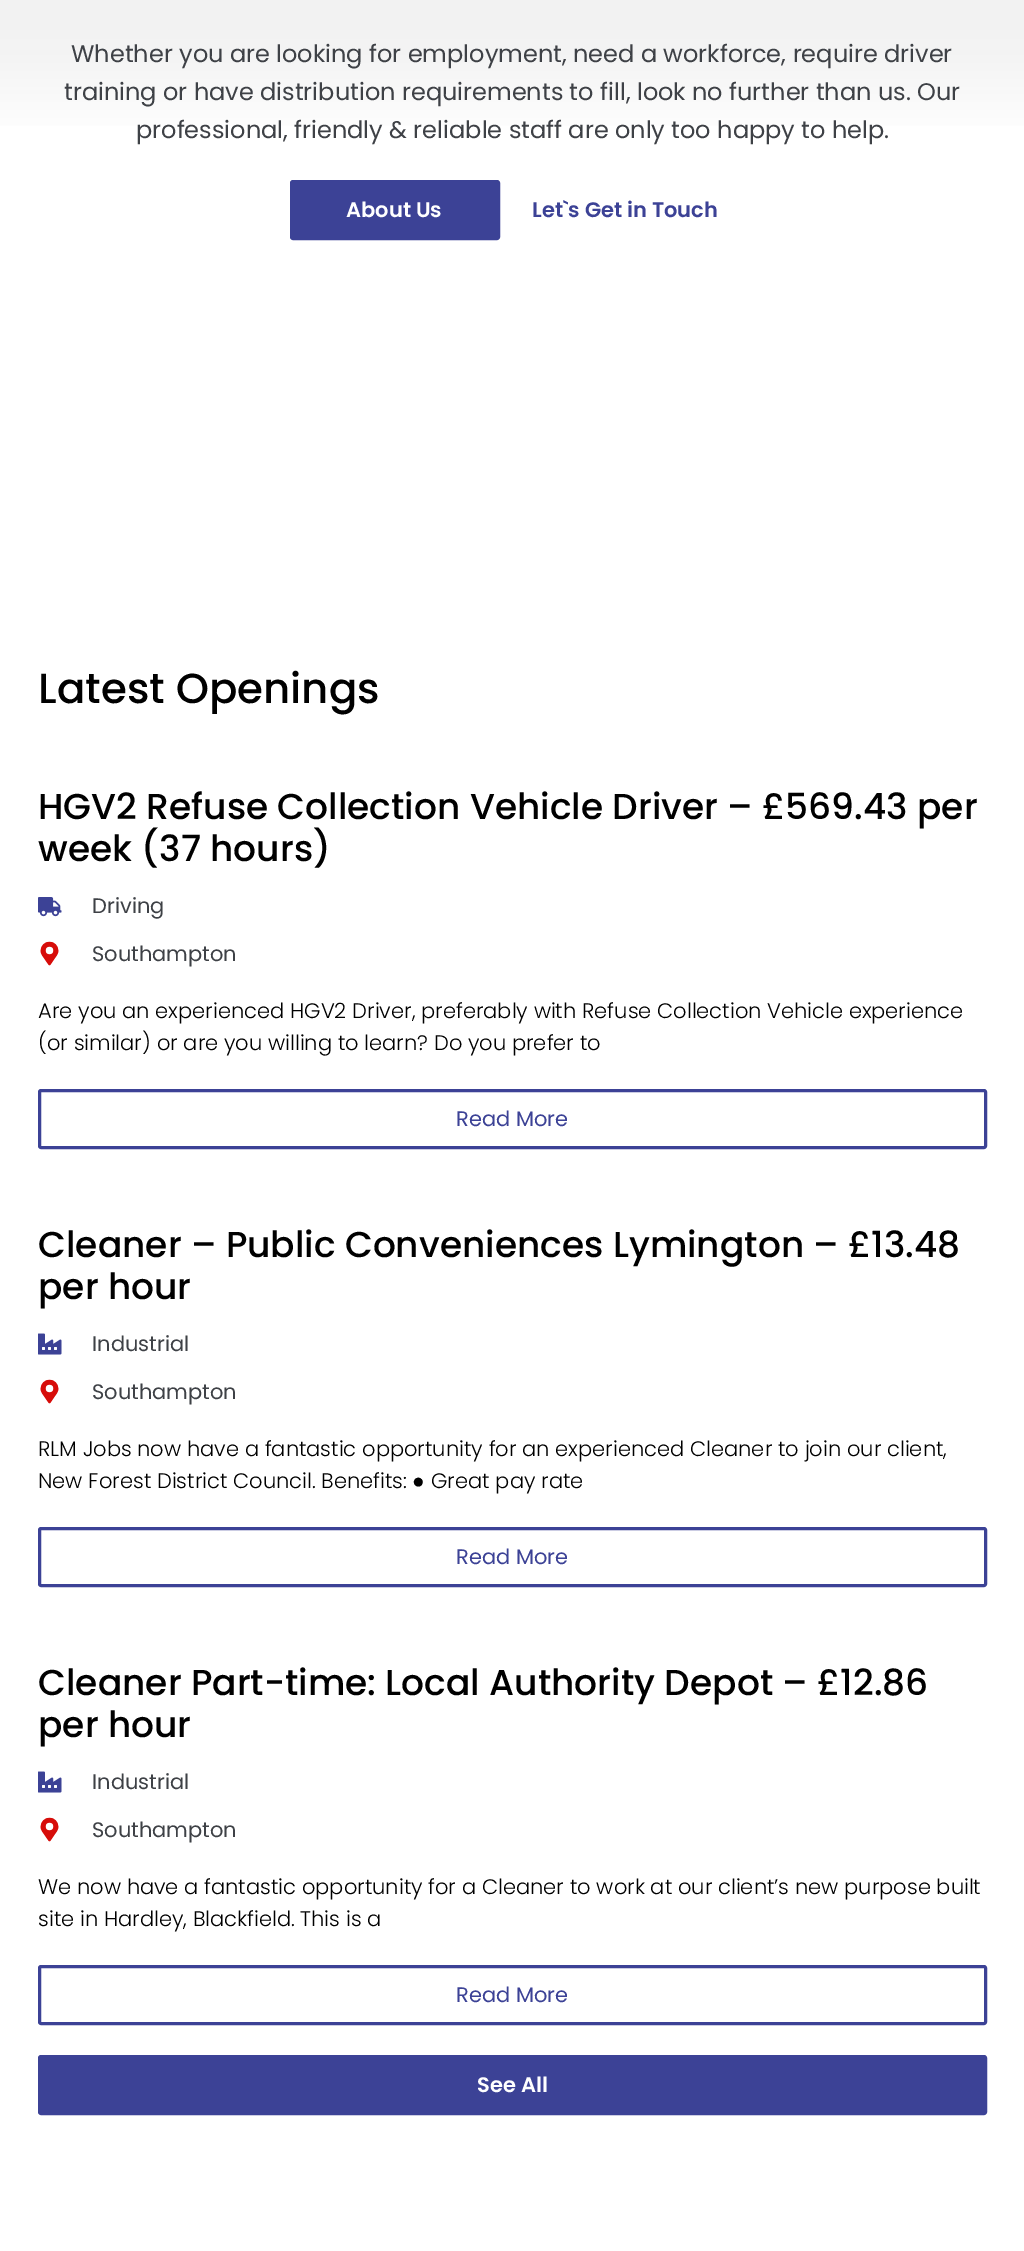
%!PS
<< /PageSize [1024 2251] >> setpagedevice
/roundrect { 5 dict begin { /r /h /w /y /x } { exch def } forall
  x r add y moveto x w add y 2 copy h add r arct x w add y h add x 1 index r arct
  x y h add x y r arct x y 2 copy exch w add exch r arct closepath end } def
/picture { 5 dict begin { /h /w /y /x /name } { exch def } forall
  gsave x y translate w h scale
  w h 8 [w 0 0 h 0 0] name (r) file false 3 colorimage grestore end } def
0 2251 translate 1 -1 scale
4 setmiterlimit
1 setgray
0 0 1024 2251 rectfill
gsave newpath 0 0 moveto 1024 0 lineto 1024 126 lineto 0 126 lineto closepath clip newpath
<< /ShadingType 2 /ColorSpace /DeviceRGB /Coords [512 -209 512 729] /Extend [true true] /Function << /FunctionType 3 /Domain [0 1] /Functions [<< /FunctionType 2 /Domain [0 1] /C0 [0.949 0.949 0.949] /C1 [0.949 0.949 0.949] /N 1 >> << /FunctionType 2 /Domain [0 1] /C0 [0.949 0.949 0.949] /C1 [1 1 1] /N 1 >> << /FunctionType 2 /Domain [0 1] /C0 [1 1 1] /C1 [1 1 1] /N 1 >>] /Bounds [0.26 0.38] /Encode [0 1 0 1 0 1] >> >> shfill grestore
/Poppins-Regular [24 0 0 -24 0 0] selectfont
0.243 0.255 0.275 setrgbcolor
71 62 moveto (Whether you are looking for employment, need a workforce, require driver) show
64 100 moveto (training or have distribution requirements to fill, look no further than us. Our) show
136 138 moveto (professional, friendly & reliable staff are only too happy to help.) show
0.235 0.259 0.588 setrgbcolor
291.5 181.5 207 57 1.5 roundrect gsave fill grestore
3 setlinewidth
stroke
/Poppins-SemiBold [21 0 0 -21 0 0] selectfont
1 setgray
346 217 moveto (About Us) show
0.235 0.259 0.588 setrgbcolor
532 217 moveto (Let`s Get in Touch) show
/Poppins-Medium [42 0 0 -42 0 0] selectfont
0 setgray
38 703 moveto (Latest Openings) show
/Poppins-Medium [36 0 0 -36 0 0] selectfont
38 819 moveto (HGV2 Refuse Collection Vehicle Driver – £569.43 per) show
38 861 moveto (week \(37 hours\)) show
(img1.rgb) 38 897 24 20 picture
/Poppins-Regular [21 0 0 -21 0 0] selectfont
0.243 0.255 0.275 setrgbcolor
92 913 moveto (Driving) show
(img2.rgb) 40 941 19 25 picture
92 961 moveto (Southampton) show
/Poppins-Light [21 0 0 -21 0 0] selectfont
0 setgray
38 1018 moveto (Are you an experienced HGV2 Driver, preferably with Refuse Collection Vehicle experience) show
38 1050 moveto (\(or similar\) or are you willing to learn? Do you prefer to) show
0.235 0.259 0.588 setrgbcolor
39.5 1090.5 946 57 1.5 roundrect stroke
/Poppins-Regular [21 0 0 -21 0 0] selectfont
456 1126 moveto (Read More) show
/Poppins-Medium [36 0 0 -36 0 0] selectfont
0 setgray
38 1257 moveto (Cleaner – Public Conveniences Lymington – £13.48) show
38 1299 moveto (per hour) show
(img3.rgb) 38 1333 24 22 picture
/Poppins-Regular [21 0 0 -21 0 0] selectfont
0.243 0.255 0.275 setrgbcolor
92 1351 moveto (Industrial) show
(img2.rgb) 40 1379 19 25 picture
92 1399 moveto (Southampton) show
/Poppins-Light [21 0 0 -21 0 0] selectfont
0 setgray
38 1456 moveto (RLM Jobs now have a fantastic opportunity for an experienced Cleaner to join our client,) show
38 1488 moveto (New Forest District Council. Benefits:) show
/LiberationSans-Regular [21 0 0 -21 0 0] selectfont
412 1488 moveto (●) show
/Poppins-Light [21 0 0 -21 0 0] selectfont
431 1488 moveto (Great pay rate) show
0.235 0.259 0.588 setrgbcolor
39.5 1528.5 946 57 1.5 roundrect stroke
/Poppins-Regular [21 0 0 -21 0 0] selectfont
456 1564 moveto (Read More) show
/Poppins-Medium [36 0 0 -36 0 0] selectfont
0 setgray
38 1695 moveto (Cleaner Part-time: Local Authority Depot – £12.86) show
38 1737 moveto (per hour) show
(img3.rgb) 38 1771 24 22 picture
/Poppins-Regular [21 0 0 -21 0 0] selectfont
0.243 0.255 0.275 setrgbcolor
92 1789 moveto (Industrial) show
(img2.rgb) 40 1817 19 25 picture
92 1837 moveto (Southampton) show
/Poppins-Light [21 0 0 -21 0 0] selectfont
0 setgray
38 1894 moveto (We now have a fantastic opportunity for a Cleaner to work at our client’s new purpose built) show
38 1926 moveto (site in Hardley, Blackfield. This is a) show
0.235 0.259 0.588 setrgbcolor
39.5 1966.5 946 57 1.5 roundrect stroke
/Poppins-Regular [21 0 0 -21 0 0] selectfont
456 2002 moveto (Read More) show
39.5 2056.5 946 57 1.5 roundrect gsave fill grestore
stroke
/Poppins-SemiBold [21 0 0 -21 0 0] selectfont
1 setgray
477 2092 moveto (See All) show
showpage
